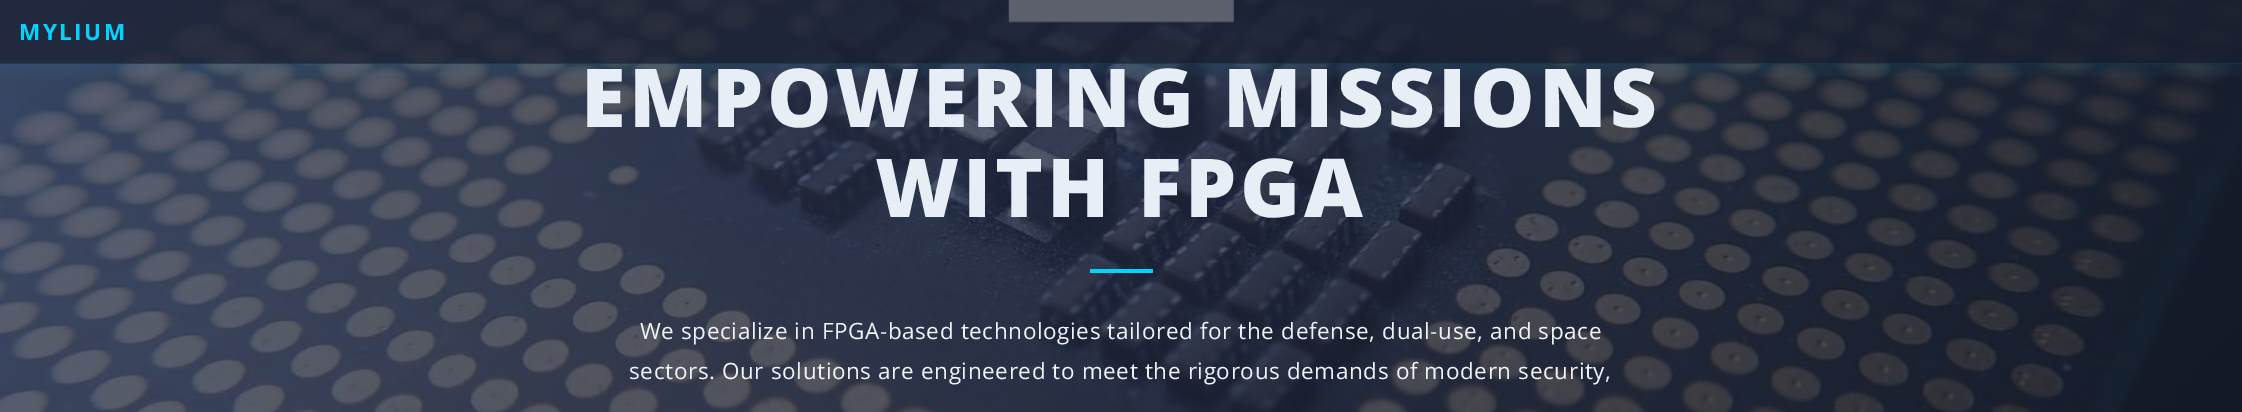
%!PS
<< /PageSize [2242 412] /PageUsesTransparency true >> setpagedevice
/alpha { dup .setfillconstantalpha .setstrokeconstantalpha } def
/roundrect { 5 dict begin { /r /h /w /y /x } { exch def } forall
  x r add y moveto x w add y 2 copy h add r arct x w add y h add x 1 index r arct
  x y h add x y r arct x y 2 copy exch w add exch r arct closepath end } def
/shadow { 12 dict begin { /a /b /q /h /w /y /x } { exch def } forall gsave /was 0 def
  9 -2 -9 { dup b mul 4 div /e exch def 1 sub .425 mul 2.718 exch exp 1 add a .99 .min exch div /now exch def
    1 1 now sub 1 was sub div sub alpha /was now def
    w h .min e 2 mul add 0 gt { x e sub y e sub w e 2 mul add h e 2 mul add
      q e add b .6 mul add w h .min 2 div e add .min 0 .max roundrect fill } if } for grestore end } def
/picture { 5 dict begin { /h /w /y /x /name } { exch def } forall
  gsave x y translate w h scale
  w h 8 [w 0 0 h 0 0] name (r) file false 3 colorimage grestore end } def
0 .pushpdf14devicefilter
0 412 translate 1 -1 scale
4 setmiterlimit
1 setgray
0 0 2242 412 rectfill
(img1.rgb) 0 0 2242 412 picture
(img2.rgb) 1008 0 226 23 picture
gsave
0 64 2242 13 rectclip
0 0.831 1 setrgbcolor
0 3 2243 63 0 12.5 0.1 shadow
grestore
0.7 alpha
0.094 0.118 0.184 setrgbcolor
0 0 2242 64 rectfill
0.1 alpha
0 0.831 1 setrgbcolor
0 63 2242 1 rectfill
/OpenSans-Bold [22.5 0 0 -22.5 0 0] selectfont
1 alpha
19 40 moveto 2.5 0 (MYLIUM) ashow
/OpenSans-ExtraBold [81.25 0 0 -81.25 0 0] selectfont
0.91 0.933 0.961 setrgbcolor
581 127 moveto 3.75 0 (EMPOWERING MISSIONS) ashow
875 217 moveto 3.75 0 (WITH FPGA) ashow
0 0.831 1 setrgbcolor
1090 269 63 4 rectfill
/OpenSans-Regular [22.5 0 0 -22.5 0 0] selectfont
0.941 0.957 0.973 setrgbcolor
640 339 moveto 0.62 0 (We specialize in FPGA-based technologies tailored for the defense, dual-use, and space) ashow
629 379 moveto 0.62 0 (sectors. Our solutions are engineered to meet the rigorous demands of modern security,) ashow
.poppdf14devicefilter showpage
